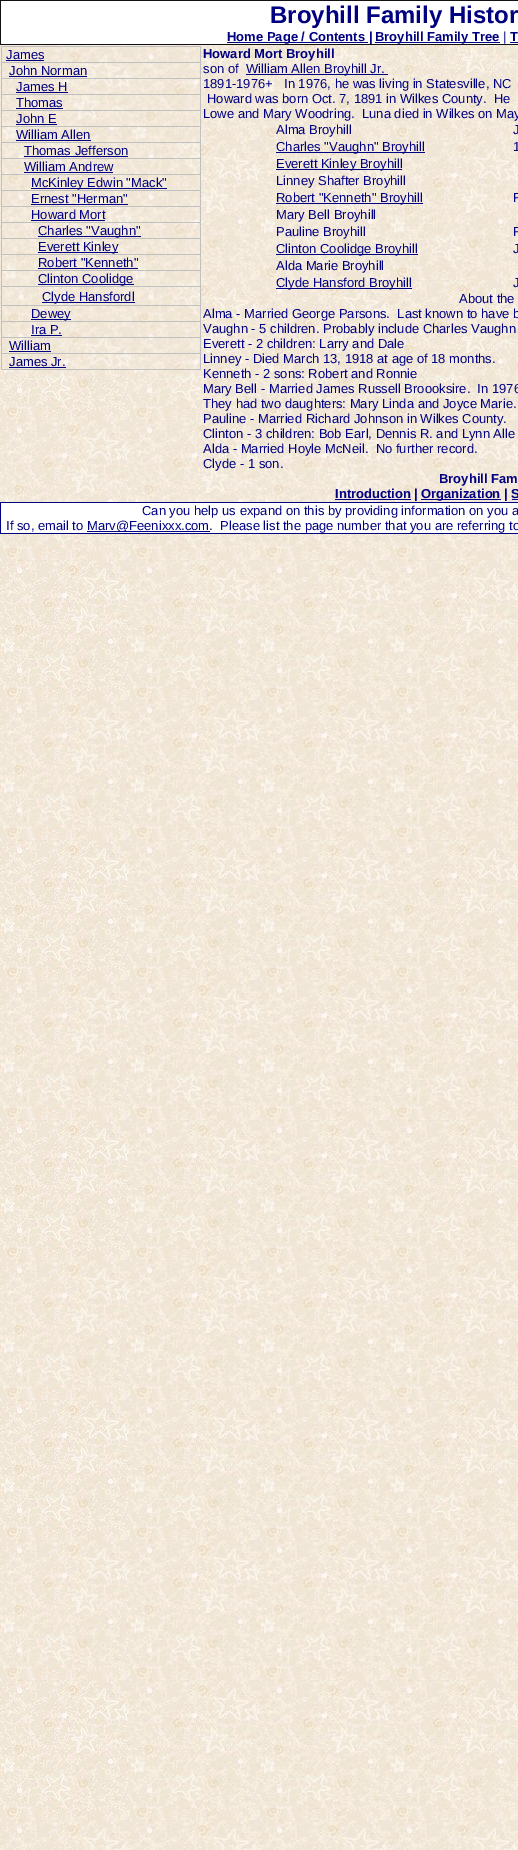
%!PS
<< /PageSize [518 1850] >> setpagedevice
/picture { 5 dict begin { /h /w /y /x /name } { exch def } forall
  gsave x y translate w h scale
  w h 8 [w 0 0 h 0 0] name (r) file false 3 colorimage grestore end } def
0 1850 translate 1 -1 scale
4 setmiterlimit
1 setgray
0 0 518 1850 rectfill
(img1.rgb) 0 45 518 1805 picture
0.067 setgray
0 0 518 1 rectfill
0 44 518 1 rectfill
0 0 1 45 rectfill
/LiberationSans-Bold [24 0 0 -24 0 0] selectfont
0 0 0.502 setrgbcolor
270 23 moveto (Broyhill Family Histor) show
227 42 141 1 rectfill
/LiberationSans-Bold [13 0 0 -13 0 0] selectfont
227 41 moveto (Home Page / Contents |) show
375 42 125 1 rectfill
375 41 moveto (Broyhill Family Tree) show
/LiberationSans-Regular [13 0 0 -13 0 0] selectfont
503 41 moveto (|) show
/LiberationSans-Bold [13 0 0 -13 0 0] selectfont
510 41 moveto (T) show
510 42 8 1 rectfill
(img2.rgb) 2 47 198 322 picture
0.753 setgray
1 46 200 1 rectfill
200 46 1 324 rectfill
1 369 200 1 rectfill
1 46 1 324 rectfill
/LiberationSans-Regular [13 0 0 -13 0 0] selectfont
0 0 0.502 setrgbcolor
6 59 moveto (James) show
6 60 38 1 rectfill
0.753 setgray
1 62 200 1 rectfill
0 0 0.502 setrgbcolor
9 75 moveto (John Norman) show
9 76 78 1 rectfill
0.753 setgray
1 78 200 1 rectfill
0 0 0.502 setrgbcolor
16 91 moveto (James H) show
16 92 52 1 rectfill
0.753 setgray
1 94 200 1 rectfill
0 0 0.502 setrgbcolor
16 107 moveto (Thomas) show
16 108 47 1 rectfill
0.753 setgray
1 110 200 1 rectfill
0 0 0.502 setrgbcolor
16 123 moveto (John E) show
16 124 41 1 rectfill
0.753 setgray
1 126 200 1 rectfill
0 0 0.502 setrgbcolor
16 139 moveto (William Allen) show
16 140 75 1 rectfill
0.753 setgray
1 142 200 1 rectfill
0 0 0.502 setrgbcolor
24 155 moveto (Thomas Jefferson) show
24 156 104 1 rectfill
0.753 setgray
1 158 200 1 rectfill
0 0 0.502 setrgbcolor
24 171 moveto (William Andrew) show
24 172 89 1 rectfill
0.753 setgray
1 174 200 1 rectfill
0 0 0.502 setrgbcolor
31 188 136 1 rectfill
31 187 moveto (McKinley Edwin "Mack") show
0.753 setgray
1 190 200 1 rectfill
0 0 0.502 setrgbcolor
31 203 moveto (Ernest "Herman") show
31 204 97 1 rectfill
0.753 setgray
1 206 200 1 rectfill
0 0 0.502 setrgbcolor
31 219 moveto (Howard Mort) show
31 220 74 1 rectfill
0.753 setgray
1 222 200 1 rectfill
0 0 0.502 setrgbcolor
38 236 103 1 rectfill
38 235 moveto (Charles "Vaughn") show
0.753 setgray
1 238 200 1 rectfill
0 0 0.502 setrgbcolor
38 252 80 1 rectfill
38 251 moveto (Everett Kinley) show
0.753 setgray
1 254 200 1 rectfill
0 0 0.502 setrgbcolor
38 267 moveto (Robert "Kenneth") show
38 268 100 1 rectfill
0.753 setgray
1 270 200 1 rectfill
0 0 0.502 setrgbcolor
38 284 96 1 rectfill
38 283 moveto (Clinton Coolidge) show
0.753 setgray
1 286 200 1 rectfill
0 0 0.502 setrgbcolor
42 302 93 1 rectfill
42 301 moveto (Clyde Hansfordl) show
0.753 setgray
1 305 200 1 rectfill
0 0 0.502 setrgbcolor
31 319 40 1 rectfill
31 318 moveto (Dewey) show
0.753 setgray
1 321 200 1 rectfill
0 0 0.502 setrgbcolor
31 334 moveto (Ira P.) show
31 335 31 1 rectfill
0.753 setgray
1 337 200 1 rectfill
0 0 0.502 setrgbcolor
9 350 moveto (William) show
9 351 42 1 rectfill
0.753 setgray
1 353 200 1 rectfill
0 0 0.502 setrgbcolor
9 366 moveto (James Jr.) show
9 367 57 1 rectfill
/LiberationSans-Bold [13 0 0 -13 0 0] selectfont
203 58 moveto (Howard Mort Broyhill) show
/LiberationSans-Regular [13 0 0 -13 0 0] selectfont
203 73 moveto (son of) show
246 74 142 1 rectfill
246 73 moveto (William Allen Broyhill Jr.) show
203 88 moveto (1891-1976+) show
284 88 moveto (In 1976, he was living in Statesville, NC) show
207 103 moveto (Howard was born Oct. 7, 1891 in Wilkes County.  He) show
203 118 moveto (Lowe and Mary Woodring.  Luna died in Wilkes on May) show
276 134 moveto (Alma Broyhill) show
513 134 moveto (J) show
276 152 149 1 rectfill
276 151 moveto (Charles "Vaughn" Broyhill) show
513 151 moveto (1) show
276 169 126 1 rectfill
276 168 moveto (Everett Kinley Broyhill) show
276 185 moveto (Linney Shafter Broyhill) show
276 203 147 1 rectfill
276 202 moveto (Robert "Kenneth" Broyhill) show
513 202 moveto (F) show
276 219 moveto (Mary Bell Broyhill) show
276 236 moveto (Pauline Broyhill) show
513 236 moveto (F) show
276 254 142 1 rectfill
276 253 moveto (Clinton Coolidge Broyhill) show
513 253 moveto (J) show
276 270 moveto (Alda Marie Broyhill) show
276 288 136 1 rectfill
276 287 moveto (Clyde Hansford Broyhill) show
513 287 moveto (J) show
459 303 moveto (About the) show
203 318 moveto (Alma - Married George Parsons.  Last known to have b) show
203 333 moveto (Vaughn - 5 children. Probably include Charles Vaughn) show
203 348 moveto (Everett - 2 children: Larry and Dale) show
203 363 moveto (Linney - Died March 13, 1918 at age of 18 months.) show
203 378 moveto (Kenneth - 2 sons: Robert and Ronnie) show
203 393 moveto (Mary Bell - Married James Russell Broooksire.  In 1976) show
203 408 moveto (They had two daughters: Mary Linda and Joyce Marie.) show
203 423 moveto (Pauline - Married Richard Johnson in Wilkes County.) show
203 438 moveto (Clinton - 3 children: Bob Earl, Dennis R. and Lynn Alle) show
203 453 moveto (Alda - Married Hoyle McNeil.  No further record.) show
203 468 moveto (Clyde - 1 son.) show
/LiberationSans-Bold [13 0 0 -13 0 0] selectfont
439 483 moveto (Broyhill Fam) show
335 499 76 1 rectfill
335 498 moveto (Introduction |) show
421 499 80 1 rectfill
421 498 moveto (Organization | S) show
512 499 6 1 rectfill
1 setgray
1 503 517 30 rectfill
0 0 0.502 setrgbcolor
0 502 518 1 rectfill
0 533 518 1 rectfill
0 502 1 32 rectfill
/LiberationSans-Regular [13 0 0 -13 0 0] selectfont
142 515 moveto (Can you help us expand on this by providing information on you a) show
6 530 moveto (If so, email to) show
87 531 123 1 rectfill
87 530 moveto (Marv@Feenixxx.com.) show
220 530 moveto (Please list the page number that you are referring to) show
showpage
